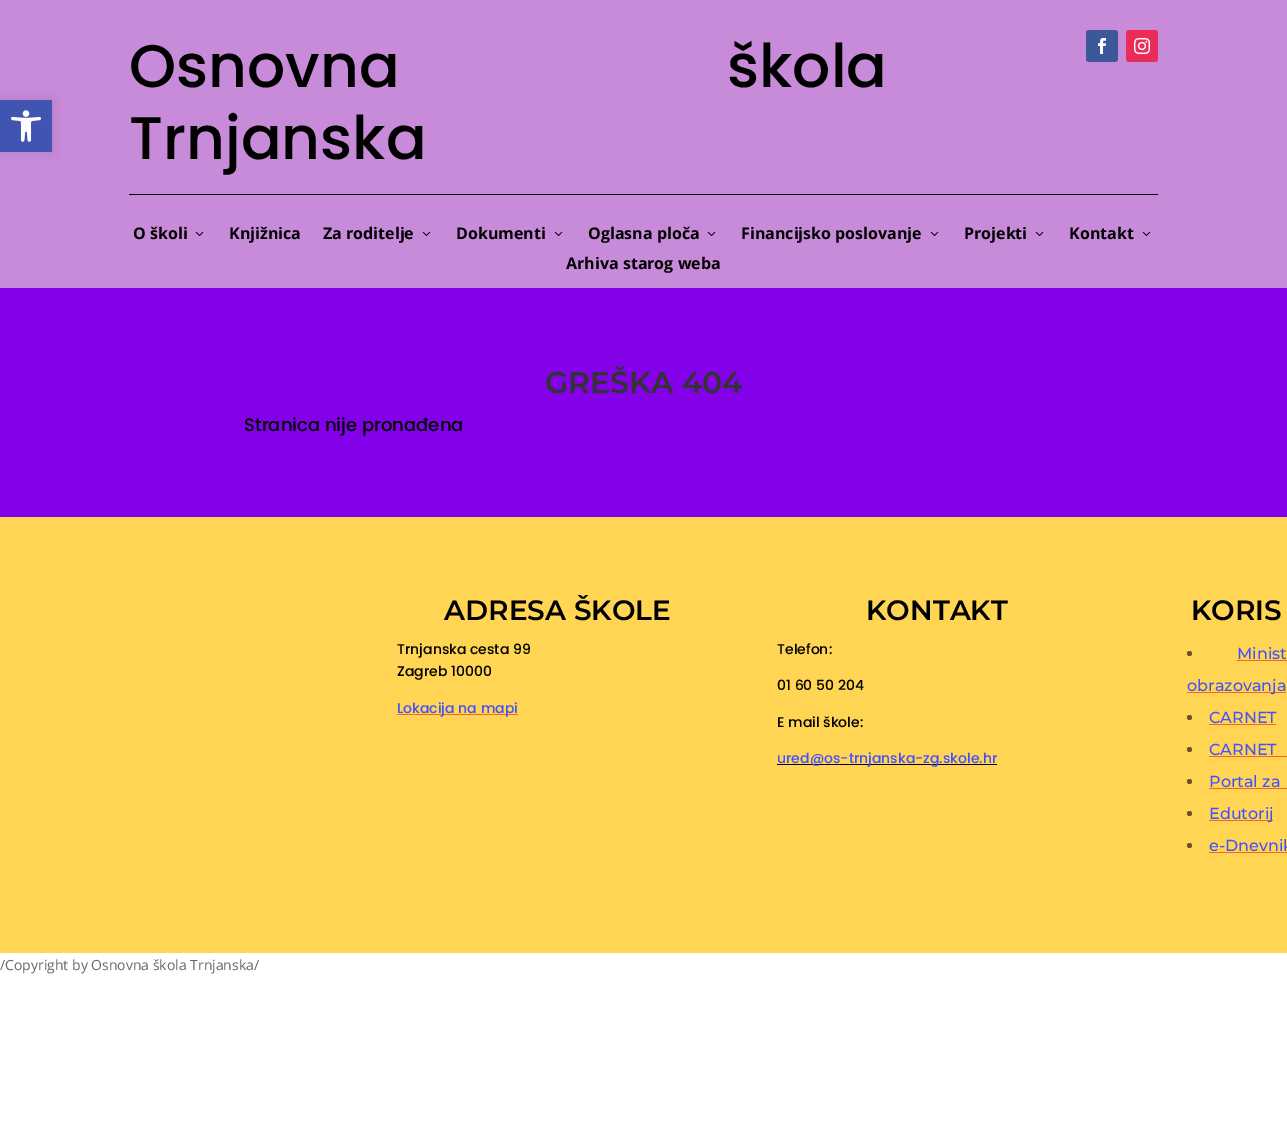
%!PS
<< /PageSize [1287 1123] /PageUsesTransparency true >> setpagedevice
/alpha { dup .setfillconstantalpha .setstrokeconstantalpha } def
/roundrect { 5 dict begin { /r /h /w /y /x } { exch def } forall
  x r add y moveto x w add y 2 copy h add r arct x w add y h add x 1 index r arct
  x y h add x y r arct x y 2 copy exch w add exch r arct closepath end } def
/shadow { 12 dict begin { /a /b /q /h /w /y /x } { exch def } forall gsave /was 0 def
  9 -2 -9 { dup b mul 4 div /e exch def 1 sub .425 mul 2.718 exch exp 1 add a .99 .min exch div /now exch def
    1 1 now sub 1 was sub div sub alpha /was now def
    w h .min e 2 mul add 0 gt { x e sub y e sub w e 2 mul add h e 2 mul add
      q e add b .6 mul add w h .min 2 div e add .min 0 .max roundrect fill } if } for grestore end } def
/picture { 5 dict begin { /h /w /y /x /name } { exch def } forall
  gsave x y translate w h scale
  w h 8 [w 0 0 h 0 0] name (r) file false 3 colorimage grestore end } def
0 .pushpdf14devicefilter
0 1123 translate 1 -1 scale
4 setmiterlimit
1 setgray
0 0 1287 1123 rectfill
0.784 0.545 0.855 setrgbcolor
0 0 1287 288 rectfill
0 setgray
0 100 52 52 0 5 0.1 shadow
0.251 0.329 0.698 setrgbcolor
0 100 52 52 rectfill
(img1.rgb) 11 110 30 32 picture
0 setgray
129 194 1029 1 rectfill
/Poppins-Medium [60 0 0 -60 0 0] selectfont
129 87 moveto 312 0 32 (Osnovna škola) widthshow
129 159 moveto (Trnjanska) show
0.231 0.349 0.596 setrgbcolor
1086 30 32 32 3 roundrect fill
(img2.rgb) 1098 38 8 16 picture
0.918 0.173 0.349 setrgbcolor
1126 30 32 32 3 roundrect fill
(img3.rgb) 1134 38 16 16 picture
/OpenSans-Bold [16 0 0 -16 0 0] selectfont
0 setgray
133 239 moveto (O školi) show
(img4.rgb) 195 231 9 5 picture
229 239 moveto (Knjižnica) show
323 239 moveto (Za roditelje) show
(img4.rgb) 422 231 9 5 picture
456 239 moveto (Dokumenti) show
(img4.rgb) 554 231 9 5 picture
588 239 moveto (Oglasna ploča) show
(img4.rgb) 707 231 9 5 picture
741 239 moveto (Financijsko poslovanje) show
(img4.rgb) 930 231 9 5 picture
964 239 moveto (Projekti) show
(img4.rgb) 1035 231 9 5 picture
1069 239 moveto (Kontakt) show
(img4.rgb) 1142 231 9 5 picture
566 269 moveto (Arhiva starog weba) show
0.514 0 0.914 setrgbcolor
0 288 1287 229 rectfill
/Montserrat-SemiBold [30 0 0 -30 0 0] selectfont
0.2 setgray
545 393 moveto (GREŠKA 404) show
/Poppins-Medium [18 0 0 -18 0 0] selectfont
0 setgray
244 431 moveto (Stranica nije pronađena) show
1 0.835 0.325 setrgbcolor
0 517 1287 436 rectfill
/Montserrat-SemiBold [28 0 0 -28 0 0] selectfont
0 setgray
444 620 moveto (ADRESA ŠKOLE) show
/Poppins-Medium [14 0 0 -14 0 0] selectfont
397 654 moveto (Trnjanska cesta 99) show
397 676 moveto (Zagreb 10000) show
0.957 0.4 0.141 setrgbcolor
397 714 121 1 rectfill
0.263 0.314 1 setrgbcolor
397 713 moveto (Lokacija na mapi) show
/Montserrat-SemiBold [28 0 0 -28 0 0] selectfont
0 setgray
866 620 moveto (KONTAKT) show
/Poppins-Medium [14 0 0 -14 0 0] selectfont
777 654 moveto (Telefon:) show
777 690 moveto (01 60 50 204) show
777 727 moveto (E mail škole:) show
777 764 220 1 rectfill
0.263 0.314 1 setrgbcolor
777 763 moveto (ured@os-trnjanska-zg.skole.hr) show
/Montserrat-SemiBold [28 0 0 -28 0 0] selectfont
0 setgray
1191 620 moveto (KORIS) show
0.4 0.333 0.129 setrgbcolor
newpath 1189.5 653.5 2.5 0 360 arc closepath fill
/Montserrat-Medium [16 0 0 -16 0 0] selectfont
0.263 0.314 1 setrgbcolor
1237 659 moveto 29 0 32 (Minist) widthshow
0.957 0.4 0.141 setrgbcolor
1237 660 50 1 rectfill
1187 692 99 1 rectfill
0.263 0.314 1 setrgbcolor
1187 691 moveto (obrazovanja) show
0.4 0.333 0.129 setrgbcolor
newpath 1189.5 717.5 2.5 0 360 arc closepath fill
0.263 0.314 1 setrgbcolor
1209 723 moveto (CARNET) show
0.957 0.4 0.141 setrgbcolor
1209 724 67 1 rectfill
0.4 0.333 0.129 setrgbcolor
newpath 1189.5 749.5 2.5 0 360 arc closepath fill
0.263 0.314 1 setrgbcolor
1209 755 moveto (CARNET) show
0.957 0.4 0.141 setrgbcolor
1209 756 78 1 rectfill
0.4 0.333 0.129 setrgbcolor
newpath 1189.5 781.5 2.5 0 360 arc closepath fill
0.263 0.314 1 setrgbcolor
1209 787 moveto (Portal za) show
0.957 0.4 0.141 setrgbcolor
1209 788 78 1 rectfill
0.4 0.333 0.129 setrgbcolor
newpath 1189.5 813.5 2.5 0 360 arc closepath fill
0.957 0.4 0.141 setrgbcolor
1209 820 64 1 rectfill
0.263 0.314 1 setrgbcolor
1209 819 moveto (Edutorij) show
0.4 0.333 0.129 setrgbcolor
newpath 1189.5 845.5 2.5 0 360 arc closepath fill
0.263 0.314 1 setrgbcolor
1209 851 moveto (e-Dnevnik) show
0.957 0.4 0.141 setrgbcolor
1209 852 78 1 rectfill
/OpenSans-Regular [14 0 0 -14 0 0] selectfont
0.4 setgray
0 970 moveto (/Copyright by Osnovna škola Trnjanska/) show
.poppdf14devicefilter showpage
